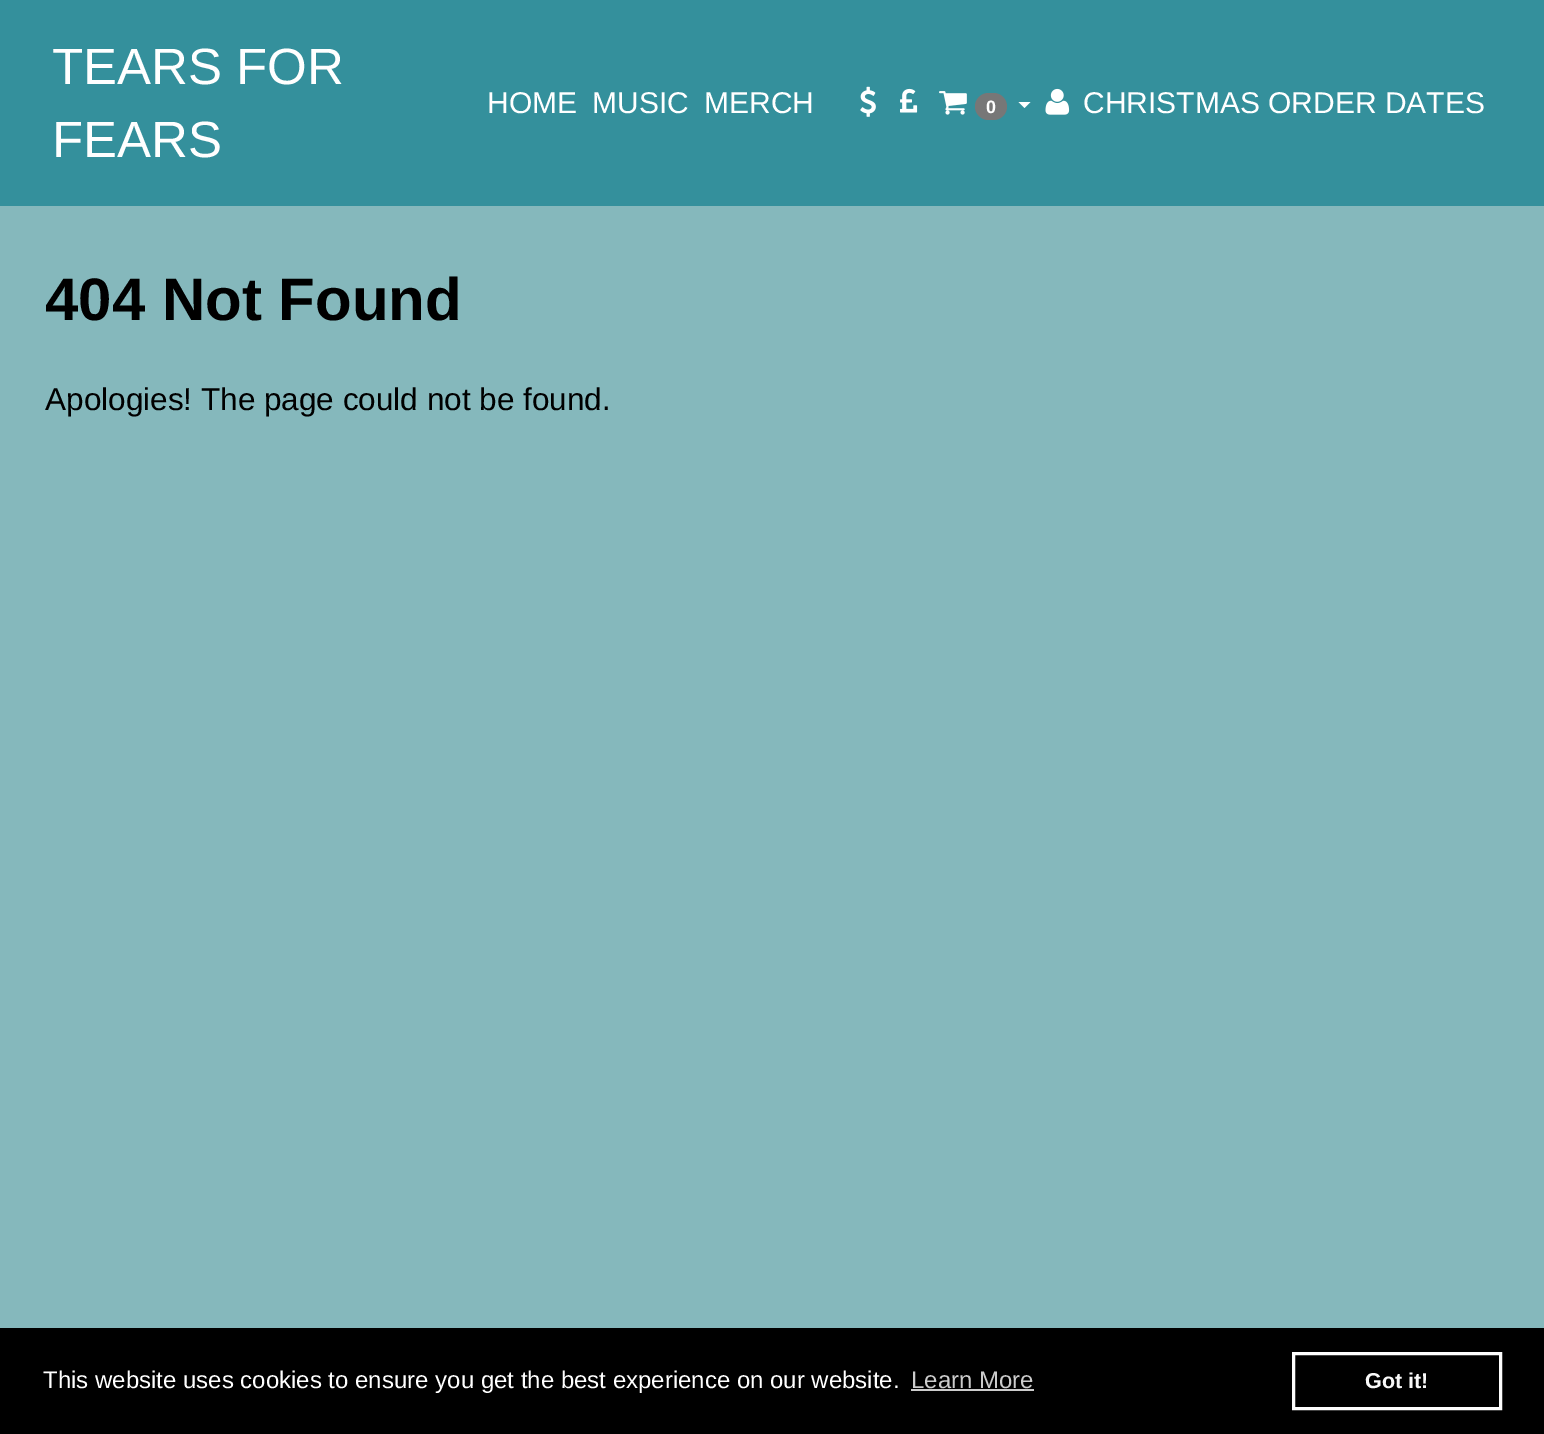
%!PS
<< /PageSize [1544 1434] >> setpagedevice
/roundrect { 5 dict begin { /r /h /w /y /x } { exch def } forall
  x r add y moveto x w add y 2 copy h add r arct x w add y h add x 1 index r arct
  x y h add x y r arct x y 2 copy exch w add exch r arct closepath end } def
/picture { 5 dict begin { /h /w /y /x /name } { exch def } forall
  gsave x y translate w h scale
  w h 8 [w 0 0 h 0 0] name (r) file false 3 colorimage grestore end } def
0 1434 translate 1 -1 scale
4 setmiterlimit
0.522 0.722 0.737 setrgbcolor
0 0 1544 1434 rectfill
0.204 0.565 0.612 setrgbcolor
0 0 1544 206 rectfill
/LiberationSans-Regular [51 0 0 -51 0 0] selectfont
1 setgray
52 84 moveto (TEARS FOR) show
52 157 moveto (FEARS) show
/LiberationSans-Regular [30 0 0 -30 0 0] selectfont
487 113 moveto (HOME) show
592 113 moveto (MUSIC) show
704 113 moveto (MERCH) show
(img1.rgb) 860 86 16 31 picture
(img2.rgb) 900 88 18 25 picture
(img3.rgb) 939 91 28 24 picture
0.467 setgray
975 93 32 27 13.5 roundrect fill
/LiberationSans-Bold [18 0 0 -18 0 0] selectfont
1 setgray
986 113 moveto (0) show
newpath 1018.5 102 moveto 1030.5 102 lineto 1024.5 108 lineto closepath fill
(img4.rgb) 1045 88 25 27 picture
/LiberationSans-Regular [30 0 0 -30 0 0] selectfont
1083 113 moveto (CHRISTMAS ORDER DATES) show
/LiberationSans-Bold [60 0 0 -60 0 0] selectfont
0 setgray
45 320 moveto (404 Not Found) show
/LiberationSans-Regular [31.5 0 0 -31.5 0 0] selectfont
45 410 moveto (Apologies! The page could not be found.) show
0 1328 1544 106 rectfill
/LiberationSans-Regular [24 0 0 -24 0 0] selectfont
1 setgray
43 1388 moveto (This website uses cookies to ensure you get the best experience on our website.) show
0.8 setgray
911 1388 moveto (Learn More) show
911 1389 123 2 rectfill
0.992 setgray
3 setlinewidth
1293.5 1353.5 207 55 rectstroke
/LiberationSans-Bold [21.5 0 0 -21.5 0 0] selectfont
0.976 setgray
1365 1388 moveto (Got it!) show
showpage
